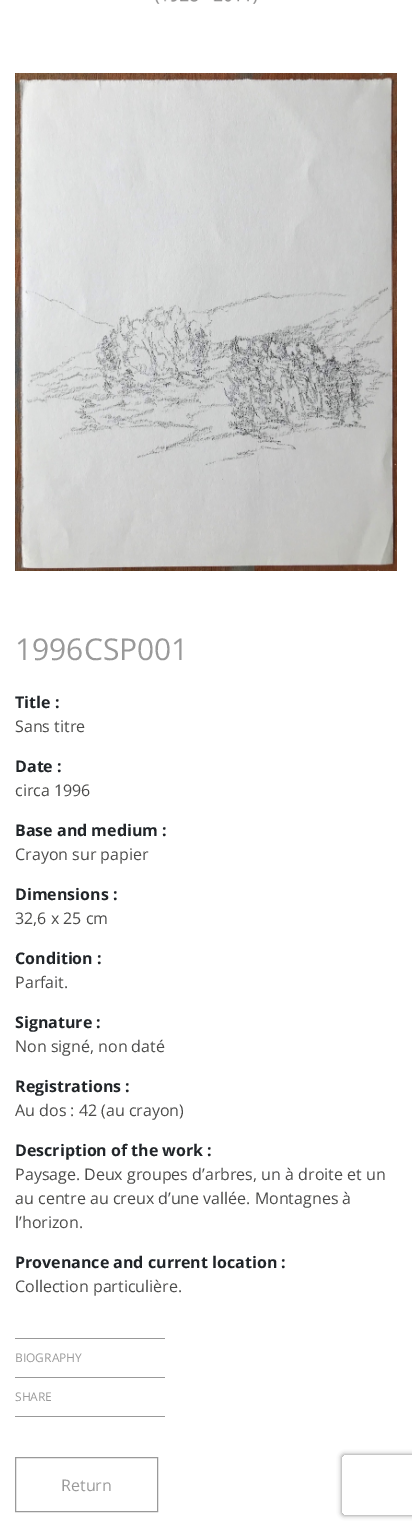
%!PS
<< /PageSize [412 1529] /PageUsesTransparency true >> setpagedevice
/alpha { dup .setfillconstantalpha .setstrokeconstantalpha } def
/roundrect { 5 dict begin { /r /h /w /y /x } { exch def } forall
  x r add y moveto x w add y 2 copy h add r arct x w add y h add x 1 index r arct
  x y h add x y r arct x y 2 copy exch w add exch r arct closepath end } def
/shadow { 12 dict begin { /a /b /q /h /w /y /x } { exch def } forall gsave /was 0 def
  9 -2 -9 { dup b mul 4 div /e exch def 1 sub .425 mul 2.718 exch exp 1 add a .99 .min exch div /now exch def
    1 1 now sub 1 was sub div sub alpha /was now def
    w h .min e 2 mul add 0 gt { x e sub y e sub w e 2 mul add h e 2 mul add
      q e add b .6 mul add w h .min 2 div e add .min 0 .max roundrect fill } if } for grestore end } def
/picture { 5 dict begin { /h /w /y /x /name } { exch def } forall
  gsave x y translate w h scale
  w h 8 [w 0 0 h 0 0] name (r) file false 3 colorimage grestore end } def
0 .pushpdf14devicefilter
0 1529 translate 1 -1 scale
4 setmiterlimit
1 setgray
0 0 412 1529 rectfill
(img1.rgb) 155 0 102 4 picture
(img2.rgb) 15 73 382 498 picture
/OpenSans-Regular [30 0 0 -30 0 0] selectfont
0.6 setgray
15 660 moveto (1996CSP001) show
/OpenSans-Bold [16 0 0 -16 0 0] selectfont
0.129 0.145 0.161 setrgbcolor
15 708 moveto (Title :) show
/OpenSans-Regular [16 0 0 -16 0 0] selectfont
0.294 0.294 0.29 setrgbcolor
15 732 moveto (Sans titre) show
/OpenSans-Bold [16 0 0 -16 0 0] selectfont
0.129 0.145 0.161 setrgbcolor
15 772 moveto (Date :) show
/OpenSans-Regular [16 0 0 -16 0 0] selectfont
0.294 0.294 0.29 setrgbcolor
15 796 moveto (circa 1996) show
/OpenSans-Bold [16 0 0 -16 0 0] selectfont
0.129 0.145 0.161 setrgbcolor
15 836 moveto (Base and medium :) show
/OpenSans-Regular [16 0 0 -16 0 0] selectfont
0.294 0.294 0.29 setrgbcolor
15 860 moveto (Crayon sur papier) show
/OpenSans-Bold [16 0 0 -16 0 0] selectfont
0.129 0.145 0.161 setrgbcolor
15 900 moveto (Dimensions :) show
/OpenSans-Regular [16 0 0 -16 0 0] selectfont
0.294 0.294 0.29 setrgbcolor
15 924 moveto (32,6 x 25 cm) show
/OpenSans-Bold [16 0 0 -16 0 0] selectfont
0.129 0.145 0.161 setrgbcolor
15 964 moveto (Condition :) show
/OpenSans-Regular [16 0 0 -16 0 0] selectfont
0.294 0.294 0.29 setrgbcolor
15 988 moveto (Parfait.) show
/OpenSans-Bold [16 0 0 -16 0 0] selectfont
0.129 0.145 0.161 setrgbcolor
15 1028 moveto (Signature :) show
/OpenSans-Regular [16 0 0 -16 0 0] selectfont
0.294 0.294 0.29 setrgbcolor
15 1052 moveto (Non signé, non daté) show
/OpenSans-Bold [16 0 0 -16 0 0] selectfont
0.129 0.145 0.161 setrgbcolor
15 1092 moveto (Registrations :) show
/OpenSans-Regular [16 0 0 -16 0 0] selectfont
0.294 0.294 0.29 setrgbcolor
15 1116 moveto (Au dos : 42 \(au crayon\)) show
/OpenSans-Bold [16 0 0 -16 0 0] selectfont
0.129 0.145 0.161 setrgbcolor
15 1156 moveto (Description of the work :) show
/OpenSans-Regular [16 0 0 -16 0 0] selectfont
0.294 0.294 0.29 setrgbcolor
15 1180 moveto (Paysage. Deux groupes d’arbres, un à droite et un) show
15 1204 moveto (au centre au creux d’une vallée. Montagnes à) show
15 1228 moveto (l’horizon.) show
/OpenSans-Bold [16 0 0 -16 0 0] selectfont
0.129 0.145 0.161 setrgbcolor
15 1268 moveto (Provenance and current location :) show
/OpenSans-Regular [16 0 0 -16 0 0] selectfont
0.294 0.294 0.29 setrgbcolor
15 1292 moveto (Collection particulière.) show
0.6 setgray
15 1338 150 1 rectfill
/OpenSans-Regular [12 0 0 -12 0 0] selectfont
15 1362 moveto (BIOGRAPHY) show
15 1377 150 1 rectfill
15 1401 moveto (SHARE) show
15 1416 150 1 rectfill
15.5 1457.5 142 54 rectstroke
/OpenSans-Regular [16 0 0 -16 0 0] selectfont
61 1491 moveto (Return) show
gsave
newpath 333 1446 moveto 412 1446 lineto 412 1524 lineto 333 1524 lineto closepath 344 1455 moveto 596 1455 lineto 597 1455 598 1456 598 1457 curveto 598 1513 lineto 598 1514 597 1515 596 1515 curveto 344 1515 lineto 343 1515 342 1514 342 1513 curveto 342 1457 lineto 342 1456 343 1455 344 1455 curveto closepath eoclip newpath
0.502 setgray
342 1455 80 60 2 2.5 1 shadow
grestore
.poppdf14devicefilter showpage
